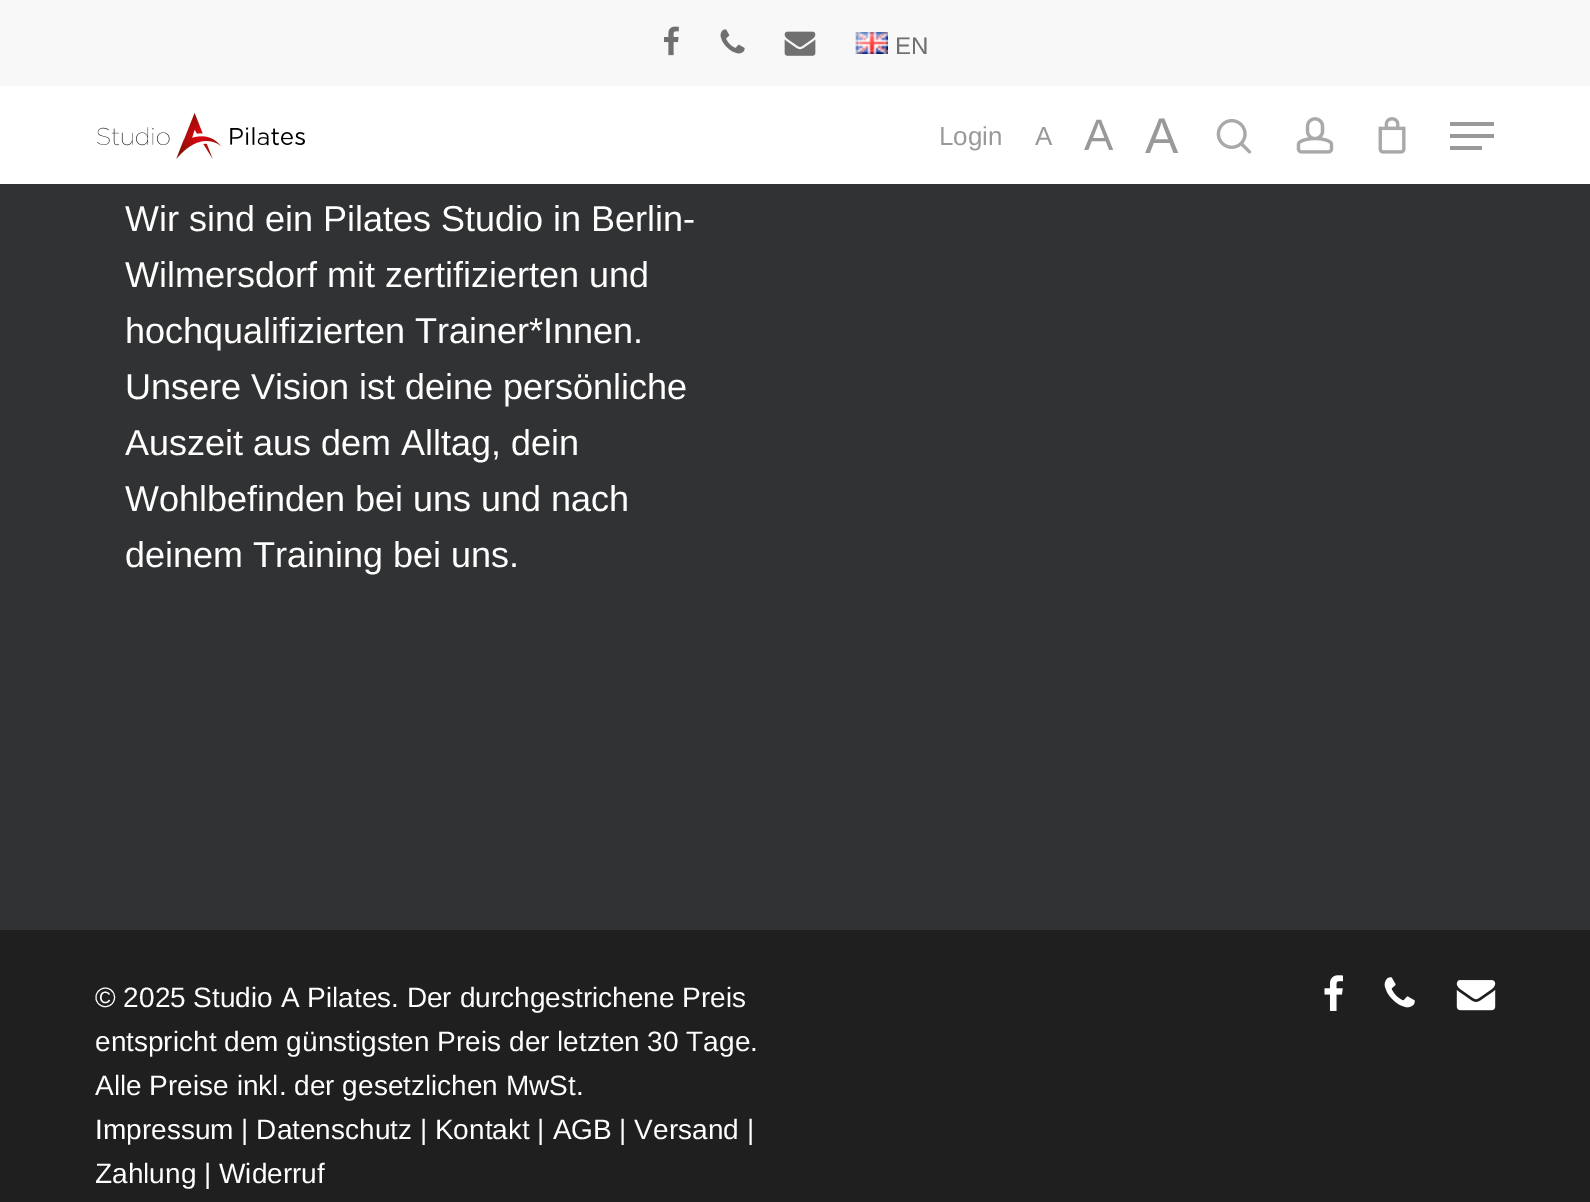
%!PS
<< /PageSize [1590 1202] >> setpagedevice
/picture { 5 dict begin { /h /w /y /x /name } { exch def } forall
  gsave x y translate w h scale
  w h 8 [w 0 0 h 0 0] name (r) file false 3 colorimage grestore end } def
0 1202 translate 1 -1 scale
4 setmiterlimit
0.192 0.196 0.2 setrgbcolor
0 0 1590 1202 rectfill
1 setgray
0 86 1590 98 rectfill
0.973 setgray
0 0 1590 86 rectfill
(img1.rgb) 664 26 15 30 picture
(img2.rgb) 720 29 25 25 picture
(img3.rgb) 784 31 32 25 picture
(img4.rgb) 855 32 33 22 picture
/LiberationSans-Regular [24 0 0 -24 0 0] selectfont
0.439 setgray
895 54 moveto (EN) show
(img5.rgb) 97 113 208 46 picture
/LiberationSans-Regular [26 0 0 -26 0 0] selectfont
0.6 setgray
939 145 moveto (Login) show
1035 145 moveto (A) show
/LiberationSans-Regular [44 0 0 -44 0 0] selectfont
1084 150 moveto (A) show
/LiberationSans-Regular [50 0 0 -50 0 0] selectfont
1145 153 moveto (A) show
(img6.rgb) 1216 119 36 35 picture
(img7.rgb) 1296 117 38 37 picture
(img8.rgb) 1378 117 28 37 picture
1450 122 44 4 rectfill
1450 146 32 4 rectfill
1450 134 44 4 rectfill
/LiberationSans-Regular [36 0 0 -36 0 0] selectfont
1 setgray
125 231 moveto (Wir sind ein Pilates Studio in Berlin-) show
125 287 moveto (Wilmersdorf mit zertifizierten und) show
125 343 moveto (hochqualifizierten Trainer*Innen.) show
125 399 moveto (Unsere Vision ist deine persönliche) show
125 455 moveto (Auszeit aus dem Alltag, dein) show
125 511 moveto (Wohlbefinden bei uns und nach) show
125 567 moveto (deinem Training bei uns.) show
0.122 setgray
0 930 1590 272 rectfill
/LiberationSans-Regular [28 0 0 -28 0 0] selectfont
1 setgray
95 1007 moveto (© 2025 Studio A Pilates. Der durchgestrichene Preis) show
95 1051 moveto (entspricht dem günstigsten Preis der letzten 30 Tage.) show
95 1095 moveto (Alle Preise inkl. der gesetzlichen MwSt.) show
95 1139 moveto (Impressum | Datenschutz | Kontakt | AGB | Versand |) show
95 1183 moveto (Zahlung | Widerruf) show
(img9.rgb) 1324 975 19 36 picture
(img10.rgb) 1384 977 31 31 picture
(img11.rgb) 1456 980 40 31 picture
showpage
